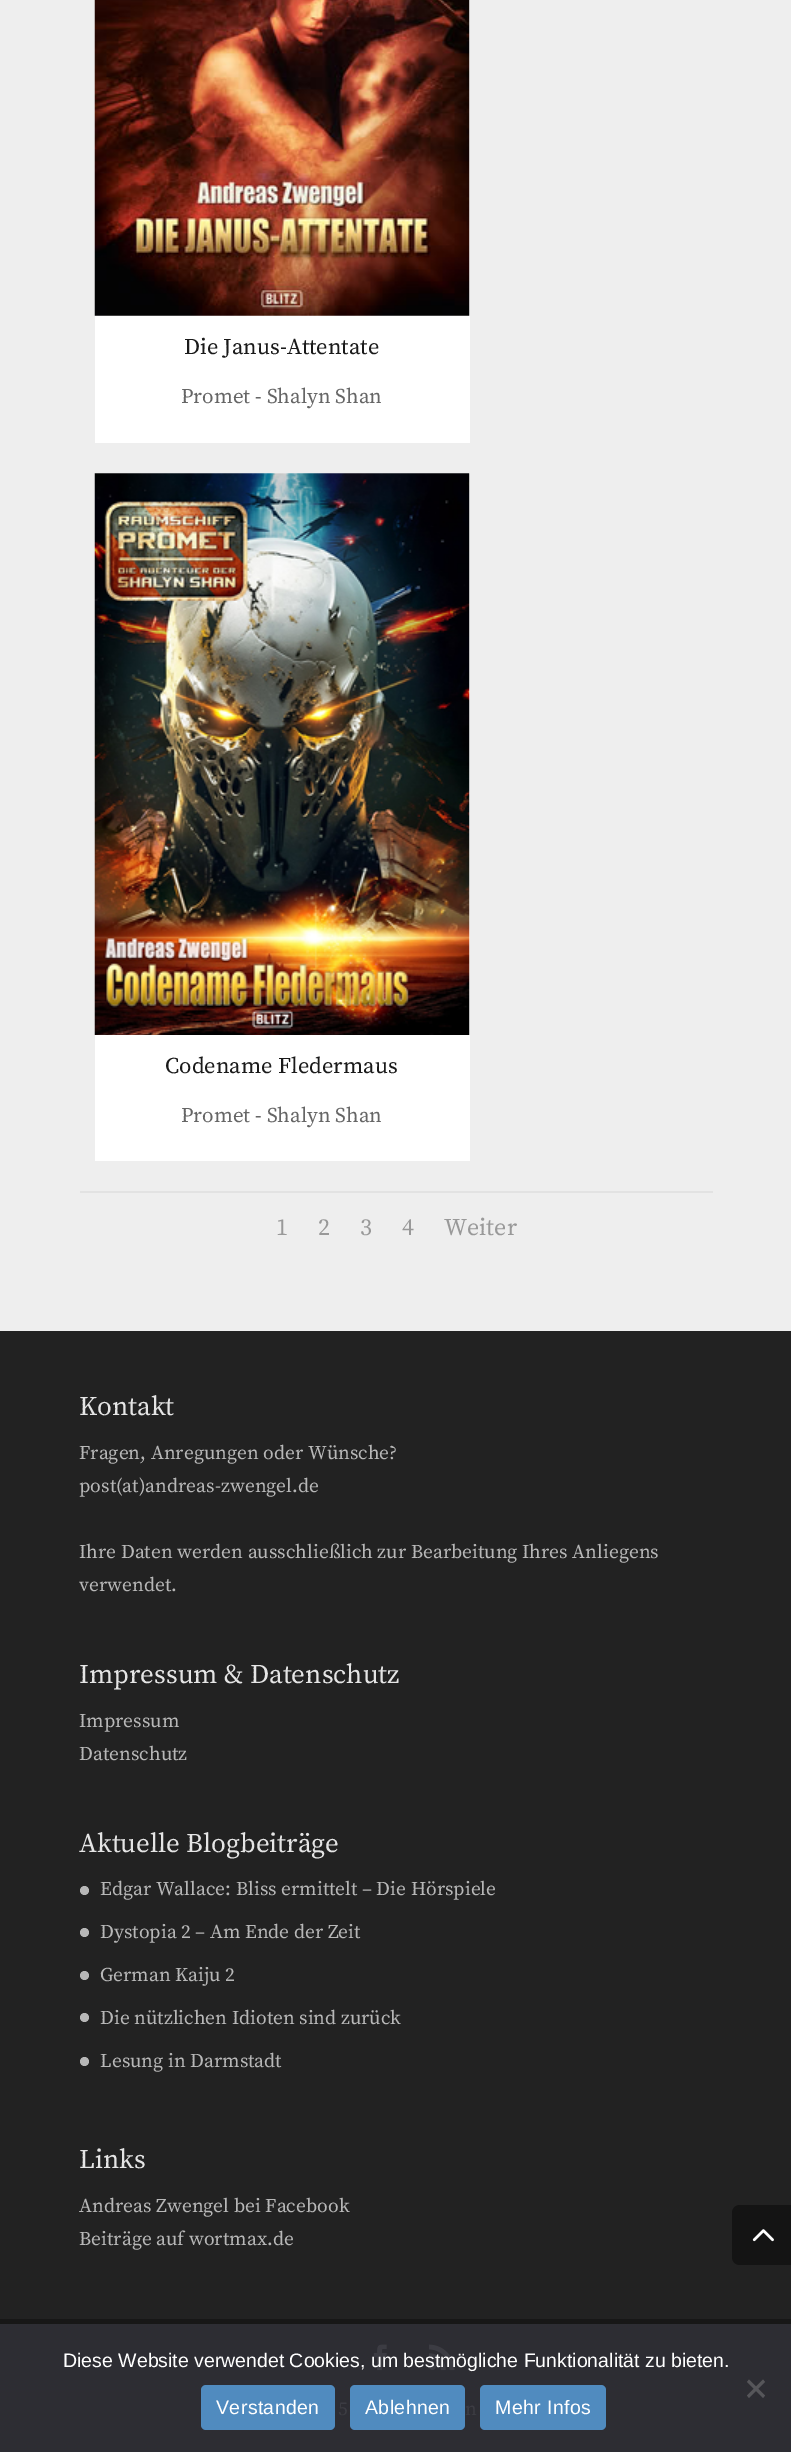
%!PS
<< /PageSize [791 2452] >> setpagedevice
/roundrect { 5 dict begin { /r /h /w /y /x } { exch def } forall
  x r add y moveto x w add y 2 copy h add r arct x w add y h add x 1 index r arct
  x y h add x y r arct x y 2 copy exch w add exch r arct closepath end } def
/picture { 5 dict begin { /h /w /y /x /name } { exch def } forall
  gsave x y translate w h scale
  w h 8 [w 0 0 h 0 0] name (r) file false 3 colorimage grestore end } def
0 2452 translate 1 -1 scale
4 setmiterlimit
0.133 setgray
0 0 791 2452 rectfill
0.933 setgray
0 0 791 1331 rectfill
1 setgray
95 0 375 443 rectfill
(img1.rgb) 94 0 376 316 picture
/SourceSerifPro-Regular [22.5 0 0 -22.5 0 0] selectfont
0.102 setgray
184 354 moveto (Die Janus-Attentate) show
/SourceSerifPro-Regular [21 0 0 -21 0 0] selectfont
0.4 setgray
181 403 moveto (Promet - Shalyn Shan) show
1 setgray
95 473 375 688 rectfill
(img2.rgb) 94 473 376 562 picture
/SourceSerifPro-Regular [22.5 0 0 -22.5 0 0] selectfont
0.102 setgray
165 1073 moveto (Codename Fledermaus) show
/SourceSerifPro-Regular [21 0 0 -21 0 0] selectfont
0.4 setgray
181 1122 moveto (Promet - Shalyn Shan) show
0.886 setgray
80 1191 633 2 rectfill
/SourceSerifPro-Regular [24 0 0 -24 0 0] selectfont
0.6 setgray
276 1235 moveto (1) show
318 1235 moveto (2) show
360 1235 moveto (3) show
402 1235 moveto (4) show
444 1235 moveto (Weiter) show
/SourceSerifPro-Regular [27 0 0 -27 0 0] selectfont
0.898 setgray
79 1415 moveto (Kontakt) show
/SourceSerifPro-Regular [19.5 0 0 -19.5 0 0] selectfont
0.718 setgray
79 1459 moveto (Fragen, Anregungen oder Wünsche?) show
79 1492 moveto (post\(at\)andreas-zwengel.de) show
79 1558 moveto (Ihre Daten werden ausschließlich zur Bearbeitung Ihres Anliegens) show
79 1591 moveto (verwendet.) show
/SourceSerifPro-Regular [27 0 0 -27 0 0] selectfont
0.898 setgray
79 1683 moveto (Impressum & Datenschutz) show
/SourceSerifPro-Regular [19.5 0 0 -19.5 0 0] selectfont
0.718 setgray
79 1727 moveto (Impressum) show
79 1760 moveto (Datenschutz) show
/SourceSerifPro-Regular [27 0 0 -27 0 0] selectfont
0.898 setgray
79 1852 moveto (Aktuelle Blogbeiträge) show
0.718 setgray
newpath 84.5 1890.5 4.5 0 360 arc closepath fill
/SourceSerifPro-Regular [19.5 0 0 -19.5 0 0] selectfont
100 1895 moveto (Edgar Wallace: Bliss ermittelt – Die Hörspiele) show
newpath 84.5 1932.5 4.5 0 360 arc closepath fill
100 1938 moveto (Dystopia 2 – Am Ende der Zeit) show
newpath 84.5 1975.5 4.5 0 360 arc closepath fill
100 1981 moveto (German Kaiju 2) show
newpath 84.5 2017.5 4.5 0 360 arc closepath fill
100 2024 moveto (Die nützlichen Idioten sind zurück) show
newpath 84.5 2061.5 4.5 0 360 arc closepath fill
100 2067 moveto (Lesung in Darmstadt) show
/SourceSerifPro-Regular [27 0 0 -27 0 0] selectfont
0.898 setgray
79 2168 moveto (Links) show
/SourceSerifPro-Regular [19.5 0 0 -19.5 0 0] selectfont
0.718 setgray
79 2212 moveto (Andreas Zwengel bei Facebook) show
79 2245 moveto (Beiträge auf wortmax.de) show
0.09 setgray
0 2319 791 5 rectfill
0.176 0.176 0.2 setrgbcolor
0 2324 791 128 rectfill
(img3.rgb) 373 2344 14 27 picture
(img4.rgb) 429 2344 26 27 picture
0.235 0.235 0.263 setrgbcolor
338 2415 moveto (5) show
465 2415 moveto (n) show
0.078 setgray
newpath 740 2205 moveto 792 2205 lineto 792 2265 lineto 740 2265 lineto 735.5 2265 732 2261.5 732 2257 curveto 732 2213 lineto 732 2208.5 735.5 2205 740 2205 curveto closepath fill
(img5.rgb) 752 2229 22 13 picture
/LiberationSans-Regular [19.5 0 0 -19.5 0 0] selectfont
1 setgray
63 2367 moveto (Diese Website verwendet Cookies, um bestmögliche Funktionalität zu bieten.) show
0.337 0.337 0.353 setrgbcolor
newpath 763 2379.5 moveto 765 2382 lineto 749 2398 lineto 747 2395.5 lineto closepath fill
newpath 747 2382 moveto 749 2379.5 lineto 765 2395.5 lineto 763 2398 lineto closepath fill
0.314 0.545 0.749 setrgbcolor
201 2385 134 45 5 roundrect fill
1 setgray
216 2414 moveto 0.4 0 (Verstanden) ashow
0.314 0.545 0.749 setrgbcolor
350 2385 115 45 5 roundrect fill
1 setgray
365 2414 moveto 0.4 0 (Ablehnen) ashow
0.314 0.545 0.749 setrgbcolor
480 2385 126 45 5 roundrect fill
1 setgray
495 2414 moveto 0.4 0 (Mehr Infos) ashow
showpage
